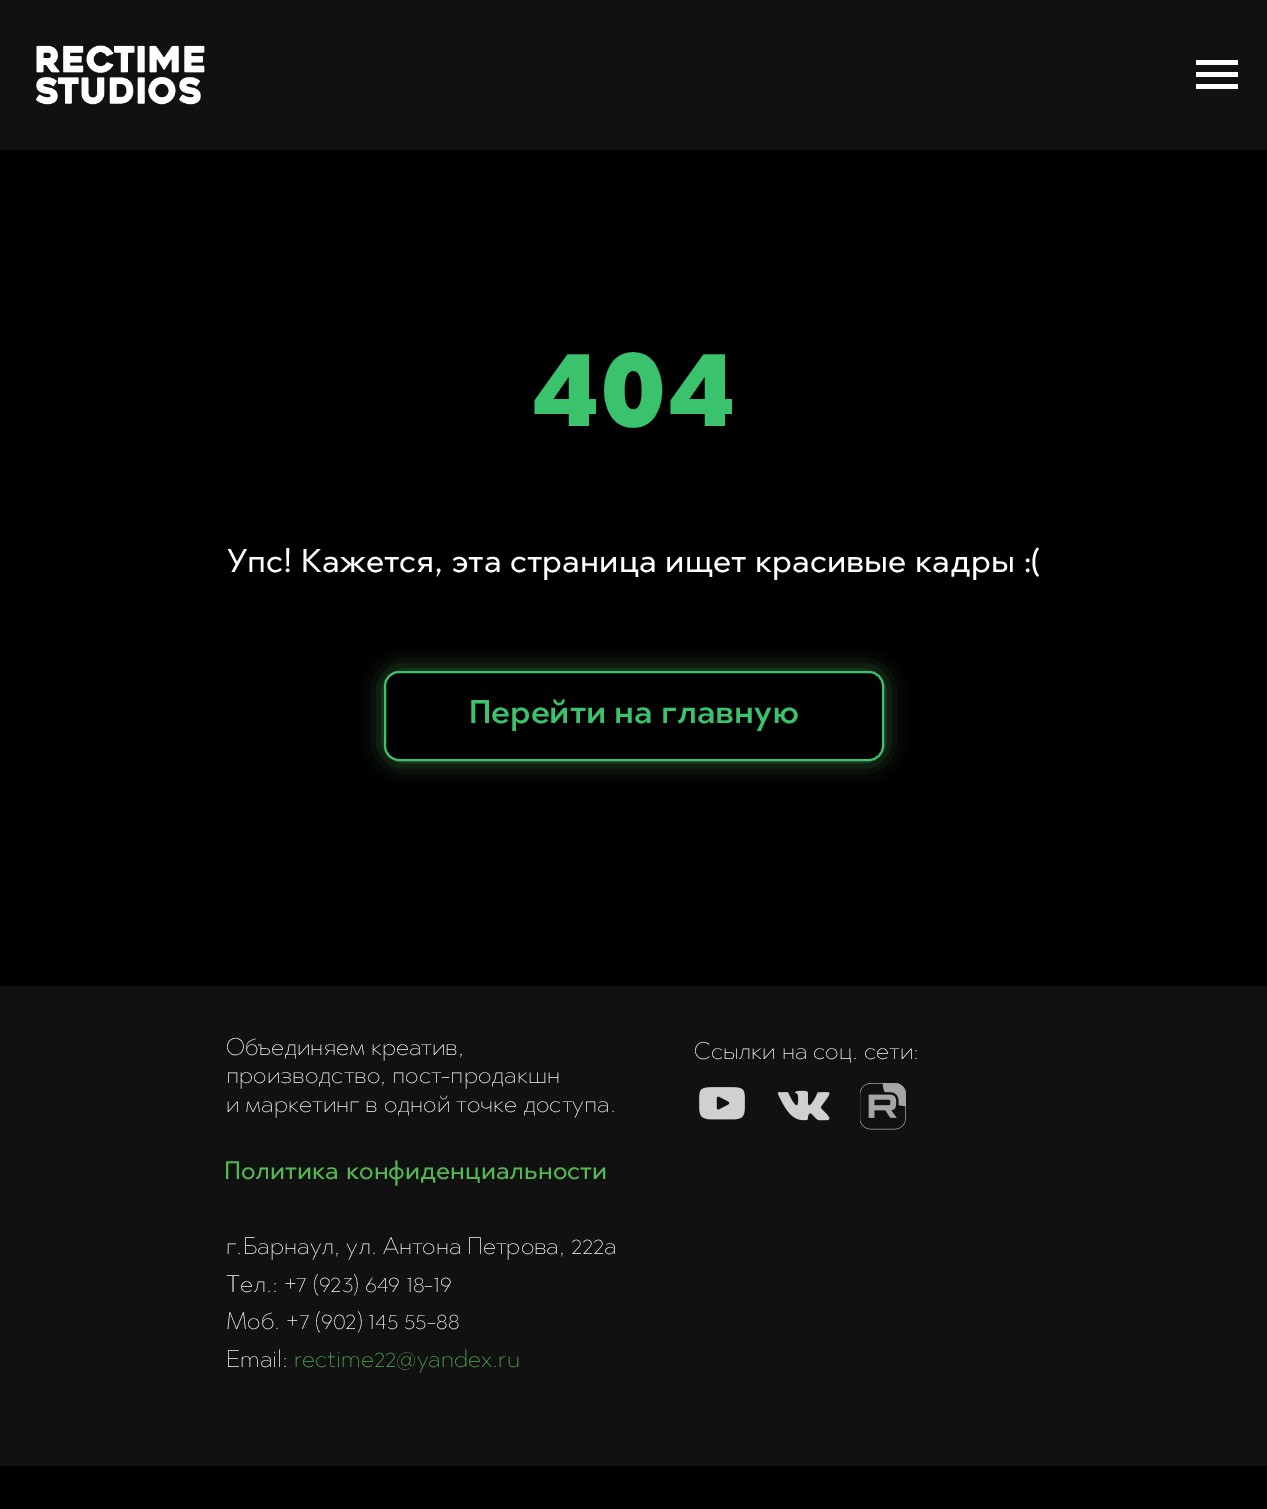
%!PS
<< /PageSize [1267 1509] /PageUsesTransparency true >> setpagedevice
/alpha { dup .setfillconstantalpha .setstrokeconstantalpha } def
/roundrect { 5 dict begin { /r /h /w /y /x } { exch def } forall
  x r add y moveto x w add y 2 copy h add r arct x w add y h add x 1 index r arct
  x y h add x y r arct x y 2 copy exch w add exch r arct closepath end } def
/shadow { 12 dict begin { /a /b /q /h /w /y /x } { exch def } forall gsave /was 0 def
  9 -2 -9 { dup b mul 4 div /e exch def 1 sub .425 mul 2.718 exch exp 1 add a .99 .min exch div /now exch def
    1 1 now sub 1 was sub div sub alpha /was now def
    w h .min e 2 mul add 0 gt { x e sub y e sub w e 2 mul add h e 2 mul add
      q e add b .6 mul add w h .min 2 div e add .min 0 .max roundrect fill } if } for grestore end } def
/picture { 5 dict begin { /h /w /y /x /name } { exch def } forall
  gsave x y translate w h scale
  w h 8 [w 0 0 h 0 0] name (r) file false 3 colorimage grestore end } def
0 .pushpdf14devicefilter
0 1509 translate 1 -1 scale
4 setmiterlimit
0 setgray
0 0 1267 1509 rectfill
0.067 setgray
0 0 1267 150 rectfill
(img1.rgb) 36 45 169 60 picture
1 setgray
1196 60 42 5 rectfill
1196 72 42 5 rectfill
1196 84 42 5 rectfill
/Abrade-Black [117 0 0 -117 0 0] selectfont
0.227 0.761 0.424 setrgbcolor
531 426 moveto (404) show
/Abrade-Medium [33 0 0 -33 0 0] selectfont
1 setgray
227 572 moveto (Упс! Кажется, эта страница ищет красивые кадры :\() show
gsave
newpath 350 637 moveto 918 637 lineto 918 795 lineto 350 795 lineto closepath 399 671 moveto 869 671 lineto 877.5 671 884 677.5 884 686 curveto 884 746 lineto 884 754.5 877.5 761 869 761 curveto 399 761 lineto 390.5 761 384 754.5 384 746 curveto 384 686 lineto 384 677.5 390.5 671 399 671 curveto closepath eoclip newpath
0.424 0.827 0.451 setrgbcolor
384 671 500 90 15 11 0.5 shadow
grestore
0.227 0.761 0.424 setrgbcolor
2 setlinewidth
385 672 498 88 14 roundrect stroke
/Abrade-SemiBold [33 0 0 -33 0 0] selectfont
469 723 moveto (Перейти на главную) show
0.067 setgray
0 986 1267 480 rectfill
/Abrade-Light [24 0 0 -24 0 0] selectfont
1 setgray
226 1055 moveto (Объединяем креатив,) show
226 1083 moveto (производство, пост-продакшн) show
226 1112 moveto (и маркетинг в одной точке доступа.) show
694 1059 moveto (Ссылки на соц. сети:) show
(img2.rgb) 699 1087 46 33 picture
(img3.rgb) 777 1090 53 31 picture
(img4.rgb) 860 1083 46 47 picture
/Abrade-Medium [25.5 0 0 -25.5 0 0] selectfont
0.325 0.722 0.318 setrgbcolor
224 1179 moveto (Политика конфиденциальности) show
/Abrade-Light [24 0 0 -24 0 0] selectfont
1 setgray
226 1254 moveto (г.Барнаул, ул. Антона Петрова, 222а) show
226 1292 moveto (Тел.: +7 \(923\) 649 18-19) show
226 1329 moveto (Моб. +7 \(902\) 145 55-88) show
226 1367 moveto (Email:) show
0.325 0.722 0.318 setrgbcolor
294 1367 moveto (rectime22@yandex.ru) show
.poppdf14devicefilter showpage
